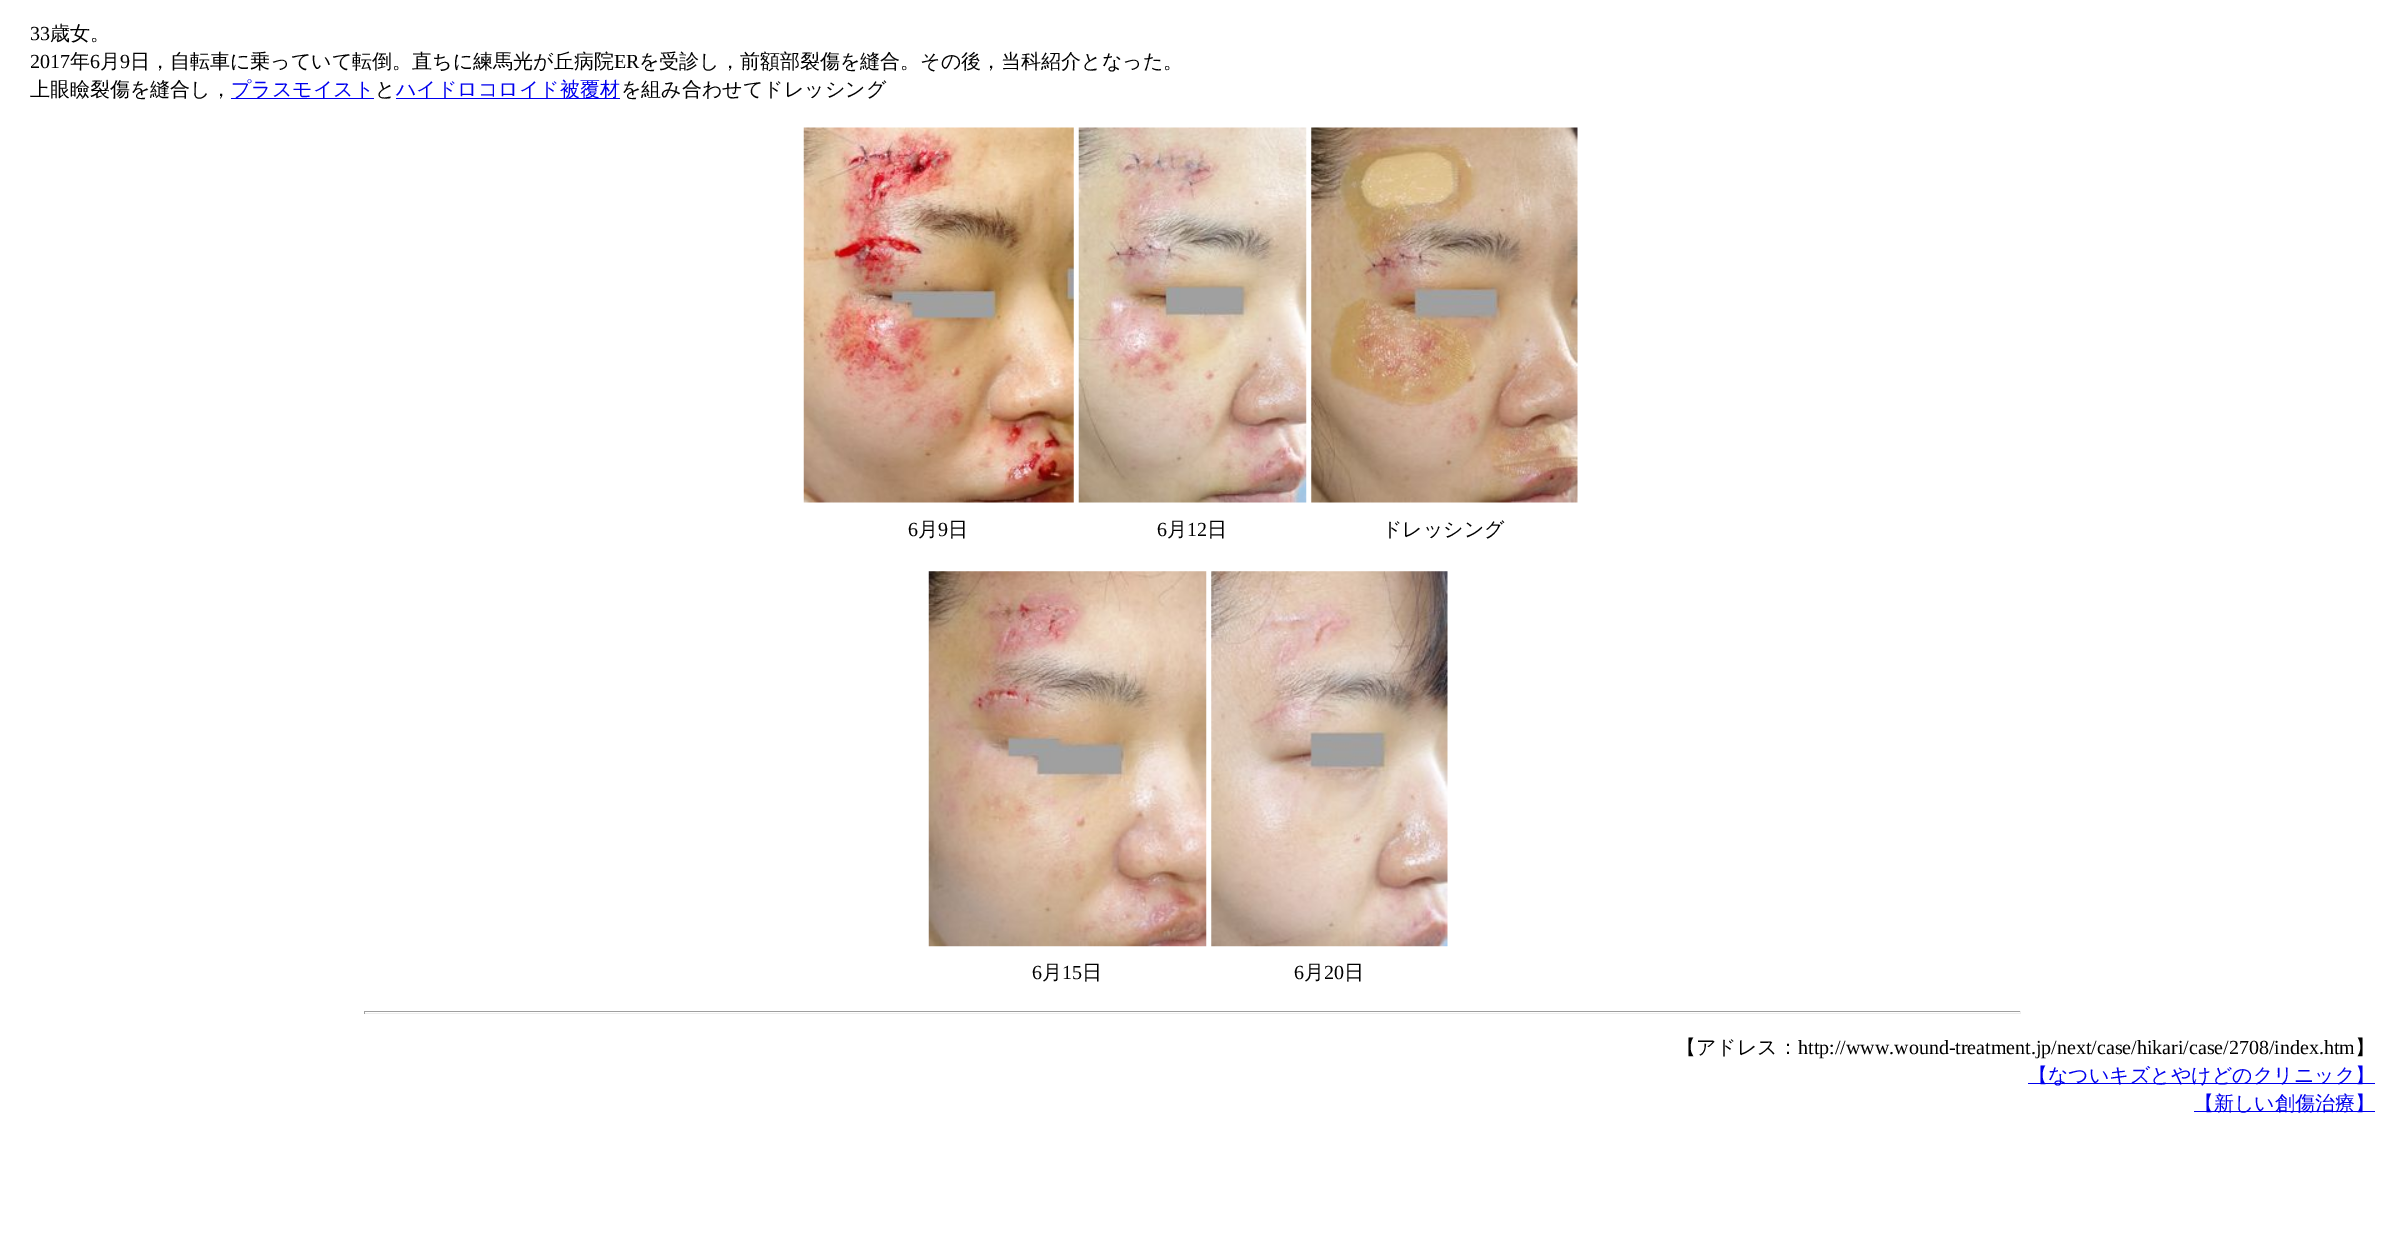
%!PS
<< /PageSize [2384 1244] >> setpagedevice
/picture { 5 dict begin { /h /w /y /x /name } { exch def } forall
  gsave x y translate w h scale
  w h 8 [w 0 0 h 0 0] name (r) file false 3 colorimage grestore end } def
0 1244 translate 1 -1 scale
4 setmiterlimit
1 setgray
0 0 2384 1244 rectfill
/LiberationSerif-Regular [20 0 0 -20 0 0] selectfont
0 setgray
30 40 moveto (33) show
/WenQuanYiZenHei-Medium [20 0 0 -20 0 0] selectfont
50 40 moveto (歳女。) show
/LiberationSerif-Regular [20 0 0 -20 0 0] selectfont
30 68 moveto (2017) show
/WenQuanYiZenHei-Medium [20 0 0 -20 0 0] selectfont
70 68 moveto (年) show
/LiberationSerif-Regular [20 0 0 -20 0 0] selectfont
90 68 moveto (6) show
/WenQuanYiZenHei-Medium [20 0 0 -20 0 0] selectfont
100 68 moveto (月) show
/LiberationSerif-Regular [20 0 0 -20 0 0] selectfont
120 68 moveto (9) show
/WenQuanYiZenHei-Medium [20 0 0 -20 0 0] selectfont
130 68 moveto (日，自転車に乗っていて転倒。直ちに練馬光が丘病院) show
/LiberationSerif-Regular [20 0 0 -20 0 0] selectfont
614 68 moveto (ER) show
/WenQuanYiZenHei-Medium [20 0 0 -20 0 0] selectfont
639 68 moveto (を受診し，前額部裂傷を縫合。その後，当科紹介となった。) show
30 96 moveto (上眼瞼裂傷を縫合し，) show
0 0 0.933 setrgbcolor
231 98 143 1 rectfill
231 96 moveto (プラスモイスト) show
0 setgray
375 96 moveto (と) show
0 0 0.933 setrgbcolor
396 98 224 1 rectfill
396 96 moveto (ハイドロコロイド被覆材) show
0 setgray
621 96 moveto (を組み合わせてドレッシング) show
(img1.rgb) 803 127 271 376 picture
(img2.rgb) 1078 127 229 376 picture
(img3.rgb) 1311 127 267 376 picture
/LiberationSerif-Regular [20 0 0 -20 0 0] selectfont
908 536 moveto (6) show
/WenQuanYiZenHei-Medium [20 0 0 -20 0 0] selectfont
918 536 moveto (月) show
/LiberationSerif-Regular [20 0 0 -20 0 0] selectfont
938 536 moveto (9) show
/WenQuanYiZenHei-Medium [20 0 0 -20 0 0] selectfont
948 536 moveto (日) show
/LiberationSerif-Regular [20 0 0 -20 0 0] selectfont
1157 536 moveto (6) show
/WenQuanYiZenHei-Medium [20 0 0 -20 0 0] selectfont
1167 536 moveto (月) show
/LiberationSerif-Regular [20 0 0 -20 0 0] selectfont
1187 536 moveto (12) show
/WenQuanYiZenHei-Medium [20 0 0 -20 0 0] selectfont
1207 536 moveto (日) show
1382 536 moveto (ドレッシング) show
(img4.rgb) 928 571 279 376 picture
(img5.rgb) 1211 571 237 376 picture
/LiberationSerif-Regular [20 0 0 -20 0 0] selectfont
1032 979 moveto (6) show
/WenQuanYiZenHei-Medium [20 0 0 -20 0 0] selectfont
1042 979 moveto (月) show
/LiberationSerif-Regular [20 0 0 -20 0 0] selectfont
1062 979 moveto (15) show
/WenQuanYiZenHei-Medium [20 0 0 -20 0 0] selectfont
1082 979 moveto (日) show
/LiberationSerif-Regular [20 0 0 -20 0 0] selectfont
1294 979 moveto (6) show
/WenQuanYiZenHei-Medium [20 0 0 -20 0 0] selectfont
1304 979 moveto (月) show
/LiberationSerif-Regular [20 0 0 -20 0 0] selectfont
1324 979 moveto (20) show
/WenQuanYiZenHei-Medium [20 0 0 -20 0 0] selectfont
1344 979 moveto (日) show
0.624 setgray
364 1011 1657 1 rectfill
0.933 setgray
2020 1011 1 3 rectfill
364 1013 1657 1 rectfill
0.624 setgray
364 1011 1 3 rectfill
0 setgray
1676 1054 moveto (【アドレス：) show
/LiberationSerif-Regular [20 0 0 -20 0 0] selectfont
1798 1054 moveto (http://www.wound-treatment.jp/next/case/hikari/case/2708/index.htm) show
/WenQuanYiZenHei-Medium [20 0 0 -20 0 0] selectfont
2355 1054 moveto (】) show
0 0 0.933 setrgbcolor
2028 1083 347 1 rectfill
2028 1082 moveto (【なついキズとやけどのクリニック】) show
2194 1111 181 1 rectfill
2194 1110 moveto (【新しい創傷治療】) show
showpage
